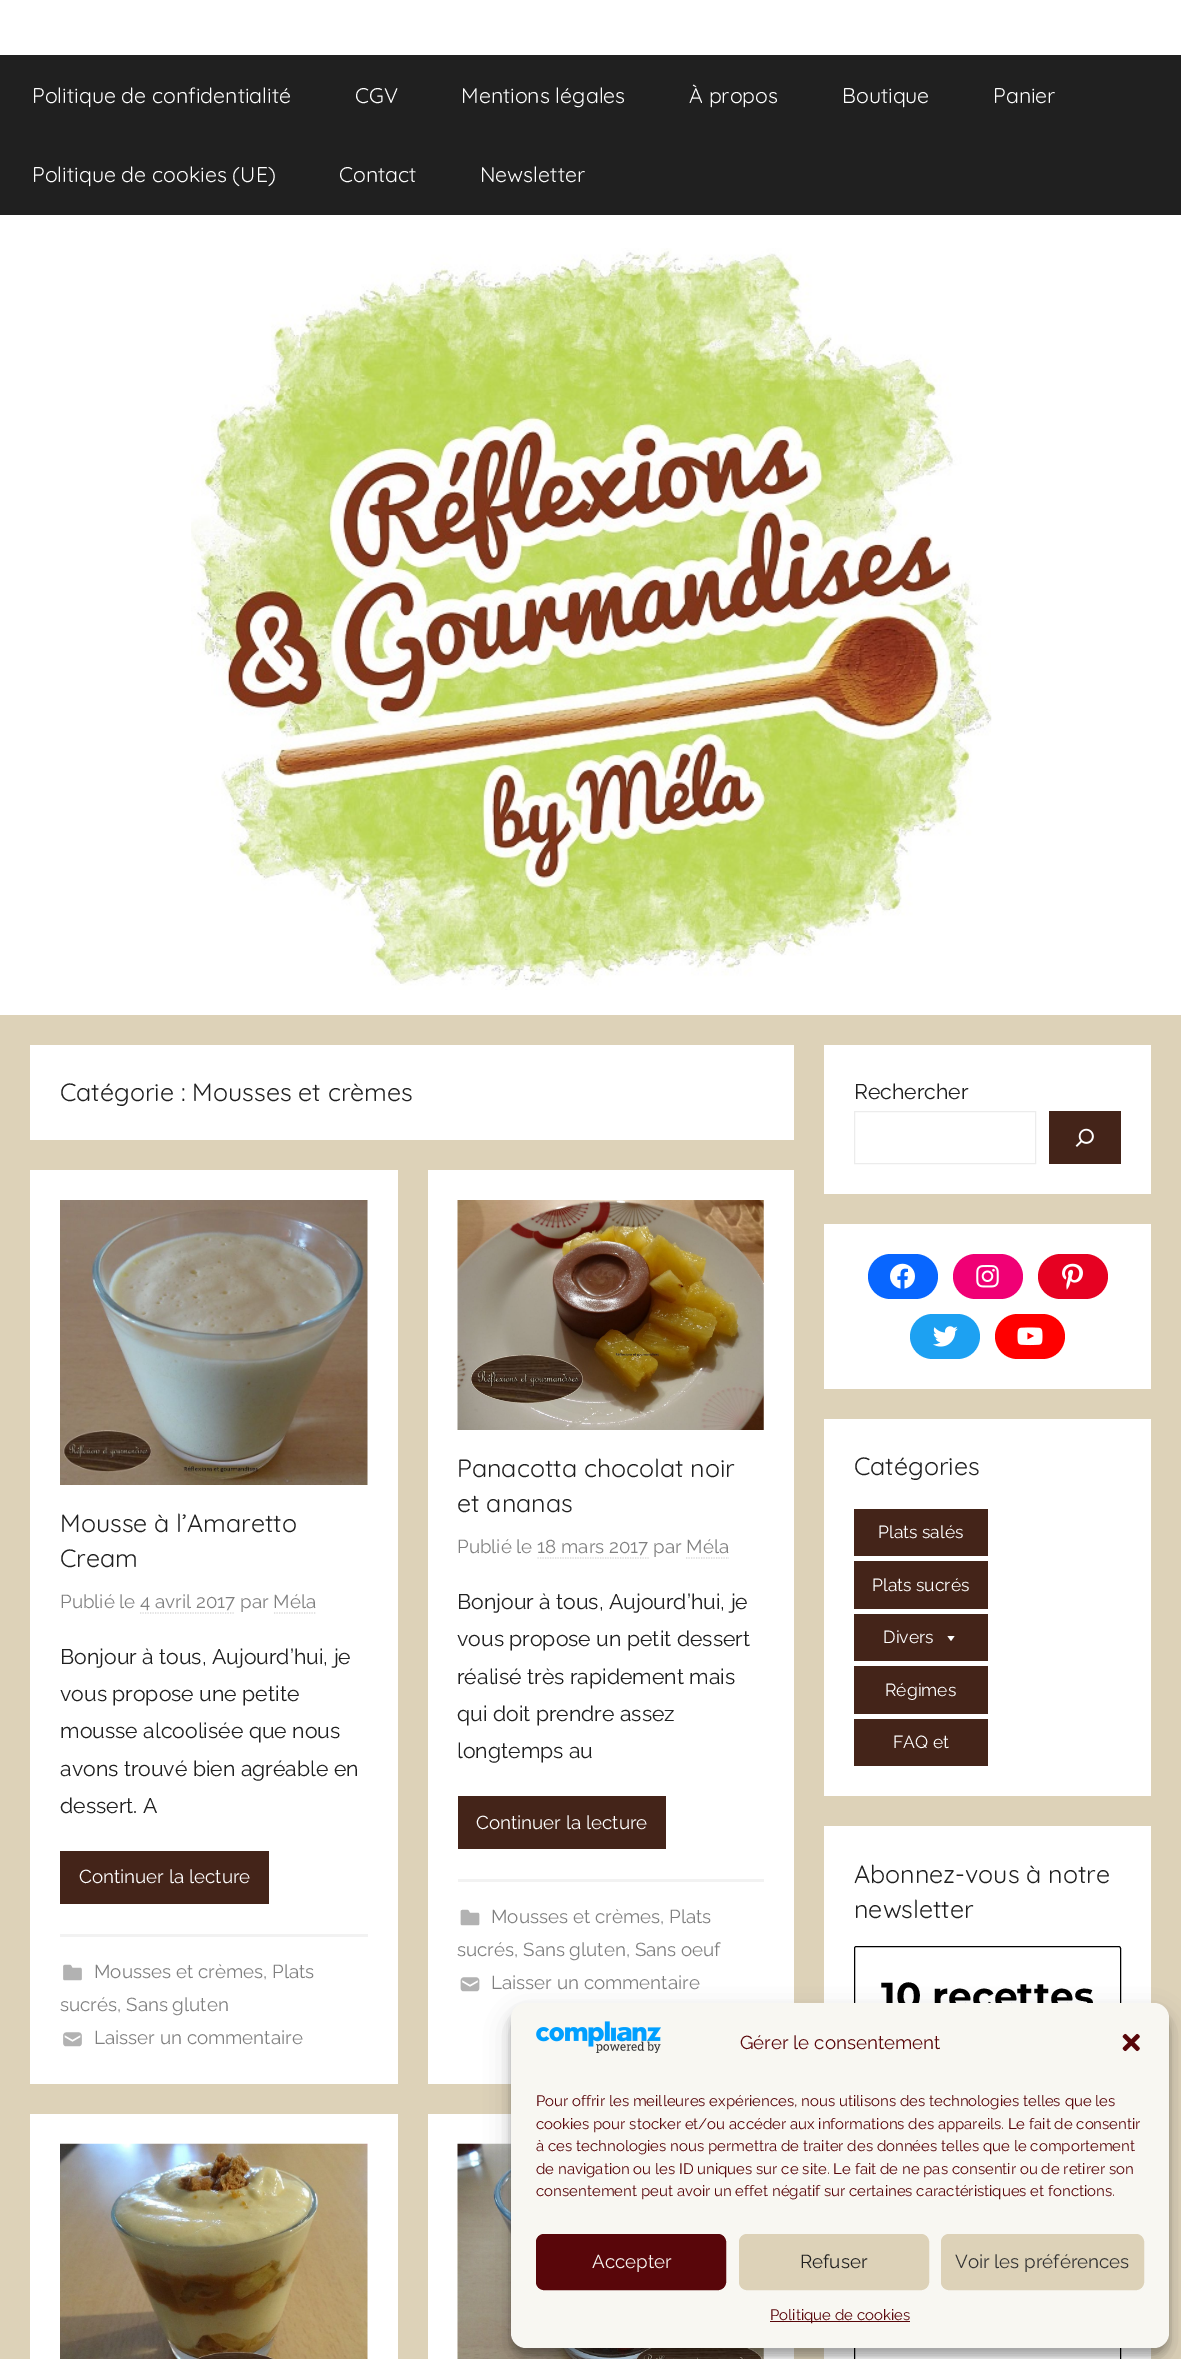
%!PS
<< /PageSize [1181 2359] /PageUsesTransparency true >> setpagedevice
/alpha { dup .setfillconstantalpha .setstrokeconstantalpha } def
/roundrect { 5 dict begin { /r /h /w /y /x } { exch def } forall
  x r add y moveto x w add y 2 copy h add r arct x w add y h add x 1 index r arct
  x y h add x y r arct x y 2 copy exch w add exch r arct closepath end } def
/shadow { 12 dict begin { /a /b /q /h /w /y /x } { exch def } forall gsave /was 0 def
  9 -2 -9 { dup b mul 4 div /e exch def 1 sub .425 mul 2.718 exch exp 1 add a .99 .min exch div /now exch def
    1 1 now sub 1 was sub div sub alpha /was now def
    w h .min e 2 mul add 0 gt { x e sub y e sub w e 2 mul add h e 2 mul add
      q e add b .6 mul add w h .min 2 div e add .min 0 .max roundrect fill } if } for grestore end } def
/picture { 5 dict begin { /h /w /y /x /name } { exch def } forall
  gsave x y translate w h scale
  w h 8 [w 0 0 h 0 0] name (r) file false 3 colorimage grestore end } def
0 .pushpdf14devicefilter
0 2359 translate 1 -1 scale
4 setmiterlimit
0.867 0.824 0.722 setrgbcolor
0 0 1181 2359 rectfill
1 setgray
0 0 1181 1015 rectfill
0.125 setgray
0 55 1181 160 rectfill
/Quicksand-Light [21.25 0 0 -21.25 0 0] selectfont
1 setgray
32 103 moveto (Politique de confidentialité) show
355 103 moveto (CGV) show
461 103 moveto (Mentions légales) show
689 103 moveto (À propos) show
842 103 moveto (Boutique) show
993 103 moveto (Panier) show
32 182 moveto (Politique de cookies \(UE\)) show
339 182 moveto (Contact) show
480 182 moveto (Newsletter) show
(img1.rgb) 191 248 801 742 picture
30 1045 764 95 rectfill
/Quicksand-Light [25 0 0 -25 0 0] selectfont
0.125 setgray
60 1101 moveto (Catégorie : Mousses et crèmes) show
1 setgray
30 1170 368 914 rectfill
(img2.rgb) 60 1200 308 285 picture
0.125 setgray
60 1532 moveto (Mousse à l’Amaretto) show
60 1567 moveto (Cream) show
/Raleway-Thin [18.75 0 0 -18.75 0 0] selectfont
0.502 setgray
60 1608 moveto (Publié le 4 avril 2017 par Méla) show
0.851 setgray
1.2 setlinewidth
[1.25 1.25] 0 setdash
newpath 140 1613 moveto 235 1613 lineto stroke
newpath 274 1613 moveto 316 1613 lineto stroke
/Raleway-Thin [21.25 0 0 -21.25 0 0] selectfont
0.125 setgray
60 1664 moveto (Bonjour à tous, Aujourd’hui, je) show
60 1701 moveto (vous propose une petite) show
60 1738 moveto (mousse alcoolisée que nous) show
60 1776 moveto (avons trouvé bien agréable en) show
60 1813 moveto (dessert. A) show
0.267 0.141 0.098 setrgbcolor
60 1851 209 53 rectfill
/Raleway-Thin [18.75 0 0 -18.75 0 0] selectfont
1 setgray
79 1883 moveto (Continuer la lecture) show
0.949 setgray
60 1934 308 3 rectfill
(img3.rgb) 63 1964 19 17 picture
0.502 setgray
94 1978 moveto (Mousses et crèmes, Plats) show
60 2011 moveto (sucrés, Sans gluten) show
(img4.rgb) 63 2032 19 15 picture
94 2044 moveto (Laisser un commentaire) show
1 setgray
428 1170 366 914 rectfill
(img5.rgb) 457 1200 307 230 picture
/Quicksand-Light [25 0 0 -25 0 0] selectfont
0.125 setgray
457 1477 moveto (Panacotta chocolat noir) show
457 1512 moveto (et ananas) show
/Raleway-Thin [18.75 0 0 -18.75 0 0] selectfont
0.502 setgray
457 1553 moveto (Publié le 18 mars 2017 par Méla) show
0.851 setgray
newpath 537.5 1558 moveto 649 1558 lineto stroke
newpath 686 1558 moveto 729 1558 lineto stroke
/Raleway-Thin [21.25 0 0 -21.25 0 0] selectfont
0.125 setgray
457 1609 moveto (Bonjour à tous, Aujourd’hui, je) show
457 1646 moveto (vous propose un petit dessert) show
457 1684 moveto (réalisé très rapidement mais) show
457 1721 moveto (qui doit prendre assez) show
457 1758 moveto (longtemps au) show
0.267 0.141 0.098 setrgbcolor
458 1796 208 53 rectfill
/Raleway-Thin [18.75 0 0 -18.75 0 0] selectfont
1 setgray
476 1829 moveto (Continuer la lecture) show
0.949 setgray
458 1879 306 3 rectfill
(img6.rgb) 460 1909 20 17 picture
0.502 setgray
491 1923 moveto (Mousses et crèmes, Plats) show
457 1956 moveto (sucrés, Sans gluten, Sans oeuf) show
(img7.rgb) 460 1977 20 15 picture
491 1989 moveto (Laisser un commentaire) show
1 setgray
30 2114 368 245 rectfill
(img8.rgb) 60 2143 308 216 picture
428 2114 366 245 rectfill
(img9.rgb) 457 2143 307 216 picture
824 1045 327 149 rectfill
/Raleway-Thin [21.25 0 0 -21.25 0 0] selectfont
0.125 setgray
854 1099 moveto (Rechercher) show
0.925 setgray
1 setlinewidth
[] 0 setdash
854.5 1111.5 181 52 rectstroke
0.267 0.141 0.098 setrgbcolor
1049 1111 72 53 rectfill
(img10.rgb) 1075 1128 19 19 picture
1 setgray
824 1224 327 165 rectfill
0.031 0.4 1 setrgbcolor
868 1254 70 45 22.5 roundrect fill
(img11.rgb) 890 1263 25 26 picture
0.941 0 0.459 setrgbcolor
953 1254 70 45 22.5 roundrect fill
(img12.rgb) 976 1265 23 23 picture
0.902 0.004 0.133 setrgbcolor
1038 1254 70 45 22.5 roundrect fill
(img13.rgb) 1062 1263 21 27 picture
0.114 0.631 0.949 setrgbcolor
910 1314 70 45 22.5 roundrect fill
(img14.rgb) 933 1326 25 21 picture
1 0 0 setrgbcolor
995 1314 70 45 22.5 roundrect fill
(img15.rgb) 1017 1327 26 19 picture
1 setgray
824 1419 327 377 rectfill
/Quicksand-Light [25 0 0 -25 0 0] selectfont
0.125 setgray
854 1475 moveto (Catégories) show
0.267 0.141 0.098 setrgbcolor
854 1509 134 47 rectfill
/Raleway-Thin [17.5 0 0 -17.5 0 0] selectfont
1 setgray
878 1538 moveto (Plats salés) show
0.267 0.141 0.098 setrgbcolor
854 1561 134 48 rectfill
1 setgray
872 1591 moveto (Plats sucrés) show
0.267 0.141 0.098 setrgbcolor
854 1614 134 47 rectfill
1 setgray
883 1643 moveto (Divers) show
newpath 954.5 1636 moveto 951 1641 lineto 947.5 1636 lineto closepath fill
0.267 0.141 0.098 setrgbcolor
854 1666 134 48 rectfill
1 setgray
885 1696 moveto (Régimes) show
0.267 0.141 0.098 setrgbcolor
854 1719 134 47 rectfill
1 setgray
893 1748 moveto (FAQ et) show
824 1826 327 533 rectfill
/Quicksand-Light [25 0 0 -25 0 0] selectfont
0.125 setgray
854 1883 moveto (Abonnez-vous à notre) show
854 1918 moveto (newsletter) show
0 setgray
854.5 1946.5 266 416 2 roundrect stroke
/Montserrat-Bold [37.5 0 0 -37.5 0 0] selectfont
881 2009 moveto (10 recettes) show
511 2010 658 345 15 4 0.23 shadow
511 2015 658 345 15 12.5 0.19 shadow
0.973 0.969 0.949 setrgbcolor
511 2003 658 345 15 roundrect fill
(img16.rgb) 536 2021 125 32 picture
/Raleway-Thin [18.75 0 0 -18.75 0 0] selectfont
0.349 0.024 0.039 setrgbcolor
740 2049 moveto (Gérer le consentement) show
(img17.rgb) 1122 2033 18 19 picture
/Raleway-Thin [15 0 0 -15 0 0] selectfont
536 2106 moveto (Pour offrir les meilleures expériences, nous utilisons des technologies telles que les) show
536 2129 moveto (cookies pour stocker et/ou accéder aux informations des appareils. Le fait de consentir) show
536 2151 moveto (à ces technologies nous permettra de traiter des données telles que le comportement) show
536 2174 moveto (de navigation ou les ID uniques sur ce site. Le fait de ne pas consentir ou de retirer son) show
536 2196 moveto (consentement peut avoir un effet négatif sur certaines caractéristiques et fonctions.) show
536.5 2234.5 189 55 7.5 roundrect gsave fill grestore
stroke
/Raleway-Thin [18.75 0 0 -18.75 0 0] selectfont
0.973 0.969 0.949 setrgbcolor
592 2268 moveto (Accepter) show
0.867 0.824 0.722 setrgbcolor
739.5 2234.5 189 55 7.5 roundrect gsave fill grestore
stroke
0.125 setgray
800 2268 moveto (Refuser) show
0.867 0.824 0.722 setrgbcolor
941.5 2234.5 202 55 7.5 roundrect gsave fill grestore
stroke
0.2 setgray
955 2268 moveto (Voir les préférences) show
0.349 0.024 0.039 setrgbcolor
770 2321 140 1 rectfill
/Raleway-Thin [15 0 0 -15 0 0] selectfont
770 2320 moveto (Politique de cookies) show
.poppdf14devicefilter showpage
